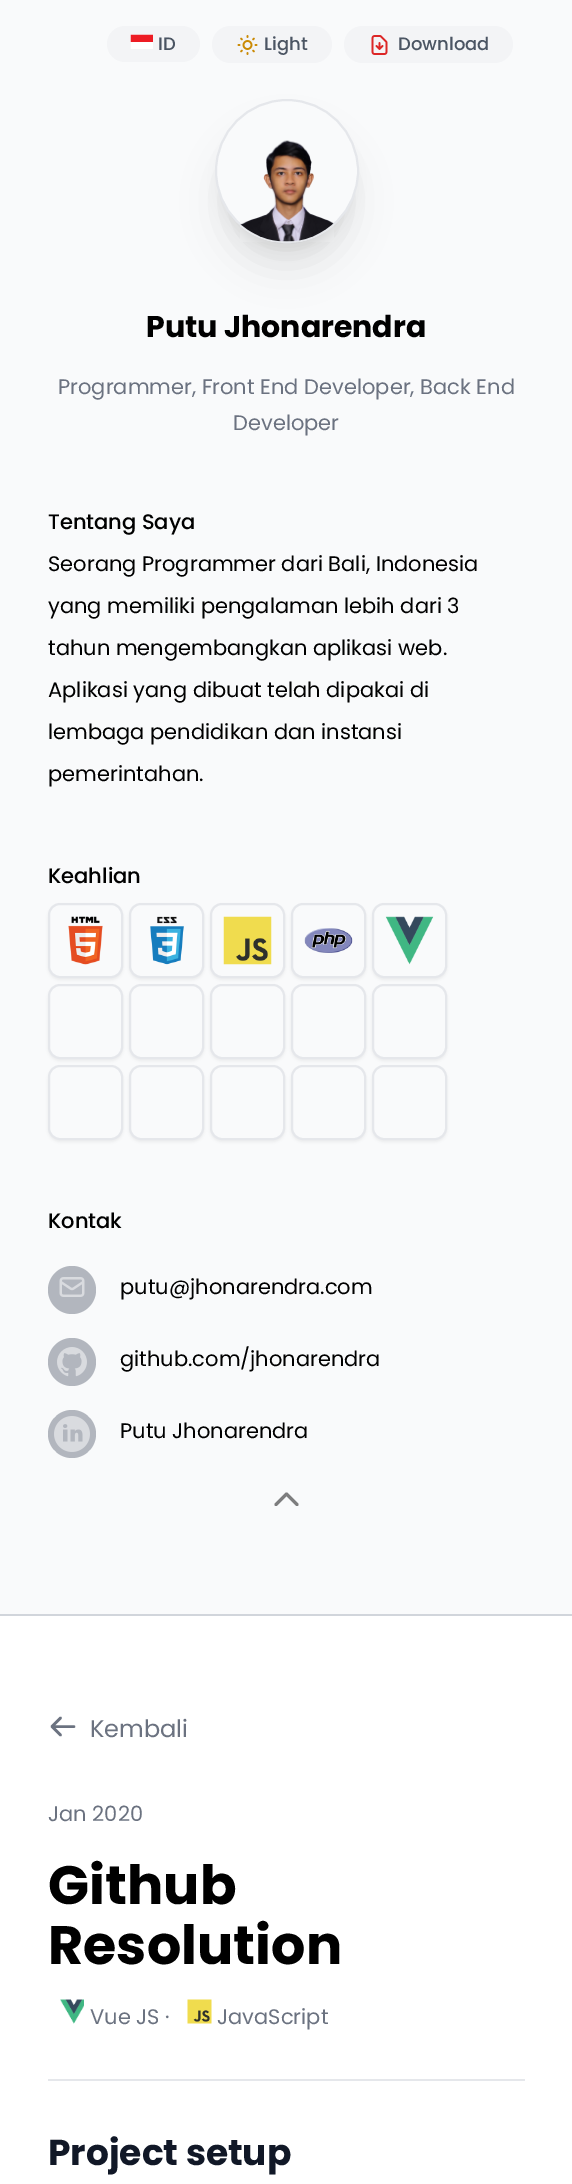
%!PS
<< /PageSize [572 2184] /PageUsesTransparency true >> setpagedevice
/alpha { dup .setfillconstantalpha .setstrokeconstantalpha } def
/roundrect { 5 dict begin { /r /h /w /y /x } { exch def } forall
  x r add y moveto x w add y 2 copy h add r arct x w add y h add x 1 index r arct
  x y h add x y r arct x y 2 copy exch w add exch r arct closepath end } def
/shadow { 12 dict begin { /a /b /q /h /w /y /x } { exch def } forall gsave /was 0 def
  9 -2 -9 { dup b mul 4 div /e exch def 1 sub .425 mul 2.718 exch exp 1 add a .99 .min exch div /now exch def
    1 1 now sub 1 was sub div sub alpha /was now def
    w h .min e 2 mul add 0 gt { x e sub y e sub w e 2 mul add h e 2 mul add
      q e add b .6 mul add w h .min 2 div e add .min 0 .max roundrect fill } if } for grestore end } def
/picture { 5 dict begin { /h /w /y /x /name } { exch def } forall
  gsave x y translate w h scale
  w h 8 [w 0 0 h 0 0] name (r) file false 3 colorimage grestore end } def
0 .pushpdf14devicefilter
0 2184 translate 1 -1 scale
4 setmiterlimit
1 setgray
0 0 572 2184 rectfill
0.976 0.98 0.984 setrgbcolor
0 0 572 1614 rectfill
0.82 0.835 0.859 setrgbcolor
0 1614 572 2 rectfill
0.953 0.957 0.965 setrgbcolor
107 26 93 36 18 roundrect fill
(img1.rgb) 130 34 23 15 picture
/Poppins-Medium [18 0 0 -18 0 0] selectfont
0.294 0.333 0.388 setrgbcolor
158 50 moveto (ID) show
0.953 0.957 0.965 setrgbcolor
212 26 120 37 18.5 roundrect fill
(img2.rgb) 237 35 21 20 picture
0.294 0.333 0.388 setrgbcolor
264 50 moveto (Light) show
0.953 0.957 0.965 setrgbcolor
344 26 169 37 18.5 roundrect fill
(img3.rgb) 371 35 17 20 picture
0.294 0.333 0.388 setrgbcolor
398 50 moveto (Download) show
gsave
newpath 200 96 moveto 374 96 lineto 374 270 lineto 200 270 lineto closepath 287 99 moveto 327 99 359 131 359 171 curveto 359 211 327 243 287 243 curveto 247 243 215 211 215 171 curveto 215 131 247 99 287 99 curveto closepath eoclip newpath
0 setgray
224 120 126 126 63 7.5 0.1 shadow
grestore
gsave
newpath 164 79 moveto 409 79 lineto 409 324 lineto 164 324 lineto closepath 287 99 moveto 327 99 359 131 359 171 curveto 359 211 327 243 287 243 curveto 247 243 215 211 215 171 curveto 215 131 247 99 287 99 curveto closepath eoclip newpath
0 setgray
222 137 129 129 64.5 19 0.1 shadow
grestore
0.898 0.906 0.922 setrgbcolor
2 setlinewidth
newpath 287 171 71 0 360 arc closepath stroke
(img4.rgb) 240 140 94 102 picture
/Poppins-Bold [30 0 0 -30 0 0] selectfont
0 setgray
146 337 moveto (Putu Jhonarendra) show
/Poppins-Regular [21 0 0 -21 0 0] selectfont
0.42 0.447 0.502 setrgbcolor
58 394 moveto (Programmer, Front End Developer, Back End) show
233 430 moveto (Developer) show
/Poppins-Medium [21 0 0 -21 0 0] selectfont
0 setgray
48 529 moveto (Tentang Saya) show
/Poppins-Regular [21 0 0 -21 0 0] selectfont
48 571 moveto (Seorang Programmer dari Bali, Indonesia) show
48 613 moveto (yang memiliki pengalaman lebih dari 3) show
48 655 moveto (tahun mengembangkan aplikasi web.) show
48 697 moveto (Aplikasi yang dibuat telah dipakai di) show
48 739 moveto (lembaga pendidikan dan instansi) show
48 781 moveto (pemerintahan.) show
/Poppins-Medium [21 0 0 -21 0 0] selectfont
48 883 moveto (Keahlian) show
gsave
newpath 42 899 moveto 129 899 lineto 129 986 lineto 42 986 lineto closepath 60 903 moveto 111 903 lineto 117.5 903 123 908.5 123 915 curveto 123 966 lineto 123 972.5 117.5 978 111 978 curveto 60 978 lineto 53.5 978 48 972.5 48 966 curveto 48 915 lineto 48 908.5 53.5 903 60 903 curveto closepath eoclip newpath
48 905 75 75 12 1.5 0.05 shadow
grestore
0.898 0.906 0.922 setrgbcolor
49 904 73 73 11 roundrect stroke
(img5.rgb) 68 916 35 49 picture
gsave
newpath 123 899 moveto 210 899 lineto 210 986 lineto 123 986 lineto closepath 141 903 moveto 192 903 lineto 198.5 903 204 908.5 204 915 curveto 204 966 lineto 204 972.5 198.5 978 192 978 curveto 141 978 lineto 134.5 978 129 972.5 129 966 curveto 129 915 lineto 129 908.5 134.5 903 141 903 curveto closepath eoclip newpath
0 setgray
129 905 75 75 12 1.5 0.05 shadow
grestore
130 904 73 73 11 roundrect stroke
(img6.rgb) 150 916 34 49 picture
gsave
newpath 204 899 moveto 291 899 lineto 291 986 lineto 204 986 lineto closepath 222 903 moveto 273 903 lineto 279.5 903 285 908.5 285 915 curveto 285 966 lineto 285 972.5 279.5 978 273 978 curveto 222 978 lineto 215.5 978 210 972.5 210 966 curveto 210 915 lineto 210 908.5 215.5 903 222 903 curveto closepath eoclip newpath
0 setgray
210 905 75 75 12 1.5 0.05 shadow
grestore
211 904 73 73 11 roundrect stroke
(img7.rgb) 223 916 49 49 picture
gsave
newpath 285 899 moveto 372 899 lineto 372 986 lineto 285 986 lineto closepath 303 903 moveto 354 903 lineto 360.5 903 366 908.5 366 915 curveto 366 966 lineto 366 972.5 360.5 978 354 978 curveto 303 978 lineto 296.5 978 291 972.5 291 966 curveto 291 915 lineto 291 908.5 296.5 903 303 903 curveto closepath eoclip newpath
0 setgray
291 905 75 75 12 1.5 0.05 shadow
grestore
292 904 73 73 11 roundrect stroke
(img8.rgb) 304 928 49 25 picture
gsave
newpath 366 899 moveto 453 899 lineto 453 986 lineto 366 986 lineto closepath 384 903 moveto 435 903 lineto 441.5 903 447 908.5 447 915 curveto 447 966 lineto 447 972.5 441.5 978 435 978 curveto 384 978 lineto 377.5 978 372 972.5 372 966 curveto 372 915 lineto 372 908.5 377.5 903 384 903 curveto closepath eoclip newpath
0 setgray
372 905 75 75 12 1.5 0.05 shadow
grestore
373 904 73 73 11 roundrect stroke
(img9.rgb) 385 916 49 49 picture
gsave
newpath 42 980 moveto 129 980 lineto 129 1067 lineto 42 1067 lineto closepath 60 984 moveto 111 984 lineto 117.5 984 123 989.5 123 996 curveto 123 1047 lineto 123 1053.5 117.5 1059 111 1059 curveto 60 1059 lineto 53.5 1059 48 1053.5 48 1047 curveto 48 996 lineto 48 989.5 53.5 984 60 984 curveto closepath eoclip newpath
0 setgray
48 986 75 75 12 1.5 0.05 shadow
grestore
49 985 73 73 11 roundrect stroke
gsave
newpath 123 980 moveto 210 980 lineto 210 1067 lineto 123 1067 lineto closepath 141 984 moveto 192 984 lineto 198.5 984 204 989.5 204 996 curveto 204 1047 lineto 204 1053.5 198.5 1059 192 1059 curveto 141 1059 lineto 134.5 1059 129 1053.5 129 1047 curveto 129 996 lineto 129 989.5 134.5 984 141 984 curveto closepath eoclip newpath
0 setgray
129 986 75 75 12 1.5 0.05 shadow
grestore
130 985 73 73 11 roundrect stroke
gsave
newpath 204 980 moveto 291 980 lineto 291 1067 lineto 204 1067 lineto closepath 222 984 moveto 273 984 lineto 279.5 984 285 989.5 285 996 curveto 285 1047 lineto 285 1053.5 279.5 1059 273 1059 curveto 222 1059 lineto 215.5 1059 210 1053.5 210 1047 curveto 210 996 lineto 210 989.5 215.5 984 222 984 curveto closepath eoclip newpath
0 setgray
210 986 75 75 12 1.5 0.05 shadow
grestore
211 985 73 73 11 roundrect stroke
gsave
newpath 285 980 moveto 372 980 lineto 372 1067 lineto 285 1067 lineto closepath 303 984 moveto 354 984 lineto 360.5 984 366 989.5 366 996 curveto 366 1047 lineto 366 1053.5 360.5 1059 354 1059 curveto 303 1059 lineto 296.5 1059 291 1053.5 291 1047 curveto 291 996 lineto 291 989.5 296.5 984 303 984 curveto closepath eoclip newpath
0 setgray
291 986 75 75 12 1.5 0.05 shadow
grestore
292 985 73 73 11 roundrect stroke
gsave
newpath 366 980 moveto 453 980 lineto 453 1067 lineto 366 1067 lineto closepath 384 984 moveto 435 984 lineto 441.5 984 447 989.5 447 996 curveto 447 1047 lineto 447 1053.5 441.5 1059 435 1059 curveto 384 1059 lineto 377.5 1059 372 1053.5 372 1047 curveto 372 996 lineto 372 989.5 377.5 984 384 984 curveto closepath eoclip newpath
0 setgray
372 986 75 75 12 1.5 0.05 shadow
grestore
373 985 73 73 11 roundrect stroke
gsave
newpath 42 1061 moveto 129 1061 lineto 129 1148 lineto 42 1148 lineto closepath 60 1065 moveto 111 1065 lineto 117.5 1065 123 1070.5 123 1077 curveto 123 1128 lineto 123 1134.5 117.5 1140 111 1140 curveto 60 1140 lineto 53.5 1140 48 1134.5 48 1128 curveto 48 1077 lineto 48 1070.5 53.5 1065 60 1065 curveto closepath eoclip newpath
0 setgray
48 1067 75 75 12 1.5 0.05 shadow
grestore
49 1066 73 73 11 roundrect stroke
gsave
newpath 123 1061 moveto 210 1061 lineto 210 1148 lineto 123 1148 lineto closepath 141 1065 moveto 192 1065 lineto 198.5 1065 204 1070.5 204 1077 curveto 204 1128 lineto 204 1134.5 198.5 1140 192 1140 curveto 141 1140 lineto 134.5 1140 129 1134.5 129 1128 curveto 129 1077 lineto 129 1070.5 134.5 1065 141 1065 curveto closepath eoclip newpath
0 setgray
129 1067 75 75 12 1.5 0.05 shadow
grestore
130 1066 73 73 11 roundrect stroke
gsave
newpath 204 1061 moveto 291 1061 lineto 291 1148 lineto 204 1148 lineto closepath 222 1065 moveto 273 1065 lineto 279.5 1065 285 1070.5 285 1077 curveto 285 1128 lineto 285 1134.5 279.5 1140 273 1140 curveto 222 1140 lineto 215.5 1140 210 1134.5 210 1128 curveto 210 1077 lineto 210 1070.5 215.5 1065 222 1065 curveto closepath eoclip newpath
0 setgray
210 1067 75 75 12 1.5 0.05 shadow
grestore
211 1066 73 73 11 roundrect stroke
gsave
newpath 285 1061 moveto 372 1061 lineto 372 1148 lineto 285 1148 lineto closepath 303 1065 moveto 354 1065 lineto 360.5 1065 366 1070.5 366 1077 curveto 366 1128 lineto 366 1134.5 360.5 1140 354 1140 curveto 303 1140 lineto 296.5 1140 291 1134.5 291 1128 curveto 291 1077 lineto 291 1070.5 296.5 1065 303 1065 curveto closepath eoclip newpath
0 setgray
291 1067 75 75 12 1.5 0.05 shadow
grestore
292 1066 73 73 11 roundrect stroke
gsave
newpath 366 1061 moveto 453 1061 lineto 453 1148 lineto 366 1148 lineto closepath 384 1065 moveto 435 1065 lineto 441.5 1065 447 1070.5 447 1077 curveto 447 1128 lineto 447 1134.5 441.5 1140 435 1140 curveto 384 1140 lineto 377.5 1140 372 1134.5 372 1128 curveto 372 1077 lineto 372 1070.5 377.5 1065 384 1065 curveto closepath eoclip newpath
0 setgray
372 1067 75 75 12 1.5 0.05 shadow
grestore
373 1066 73 73 11 roundrect stroke
0 setgray
48 1228 moveto (Kontak) show
0.698 0.714 0.745 setrgbcolor
newpath 72 1290 24 0 360 arc closepath fill
(img10.rgb) 59 1277 26 20 picture
/Poppins-Regular [21 0 0 -21 0 0] selectfont
0 setgray
120 1294 moveto (putu@jhonarendra.com) show
0.698 0.714 0.745 setrgbcolor
newpath 72 1362 24 0 360 arc closepath fill
(img11.rgb) 57 1347 30 30 picture
0 setgray
120 1366 moveto (github.com/jhonarendra) show
0.698 0.714 0.745 setrgbcolor
newpath 72 1434 24 0 360 arc closepath fill
(img12.rgb) 54 1416 36 36 picture
0 setgray
120 1438 moveto (Putu Jhonarendra) show
0.49 0.49 0.494 setrgbcolor
3 setlinewidth
1 setlinecap
1 setlinejoin
newpath 276 1504.5 moveto 286.5 1494 lineto 297 1504.5 lineto stroke
0.42 0.447 0.502 setrgbcolor
2.5 setlinewidth
newpath 60.5 1735 moveto 52 1726.5 lineto 52 1726.5 moveto 60.5 1718 lineto 52 1726.5 moveto 74 1726.5 lineto stroke
/Poppins-Regular [24 0 0 -24 0 0] selectfont
90 1737 moveto (Kembali) show
0.898 0.906 0.922 setrgbcolor
48 2079 477 2 rectfill
/Poppins-Regular [21 0 0 -21 0 0] selectfont
0.42 0.447 0.502 setrgbcolor
48 1821 moveto (Jan 2020) show
/Poppins-Bold [54 0 0 -54 0 0] selectfont
0 setgray
48 1904 moveto (Github) show
48 1964 moveto (Resolution) show
(img13.rgb) 60 1999 24 25 picture
/Poppins-Regular [21 0 0 -21 0 0] selectfont
0.42 0.447 0.502 setrgbcolor
90 2024 moveto (Vue JS ·) show
(img14.rgb) 187 1999 25 25 picture
217 2024 moveto (JavaScript) show
/Poppins-Bold [36 0 0 -36 0 0] selectfont
0.067 0.094 0.153 setrgbcolor
48 2165 moveto (Project setup) show
.poppdf14devicefilter showpage
